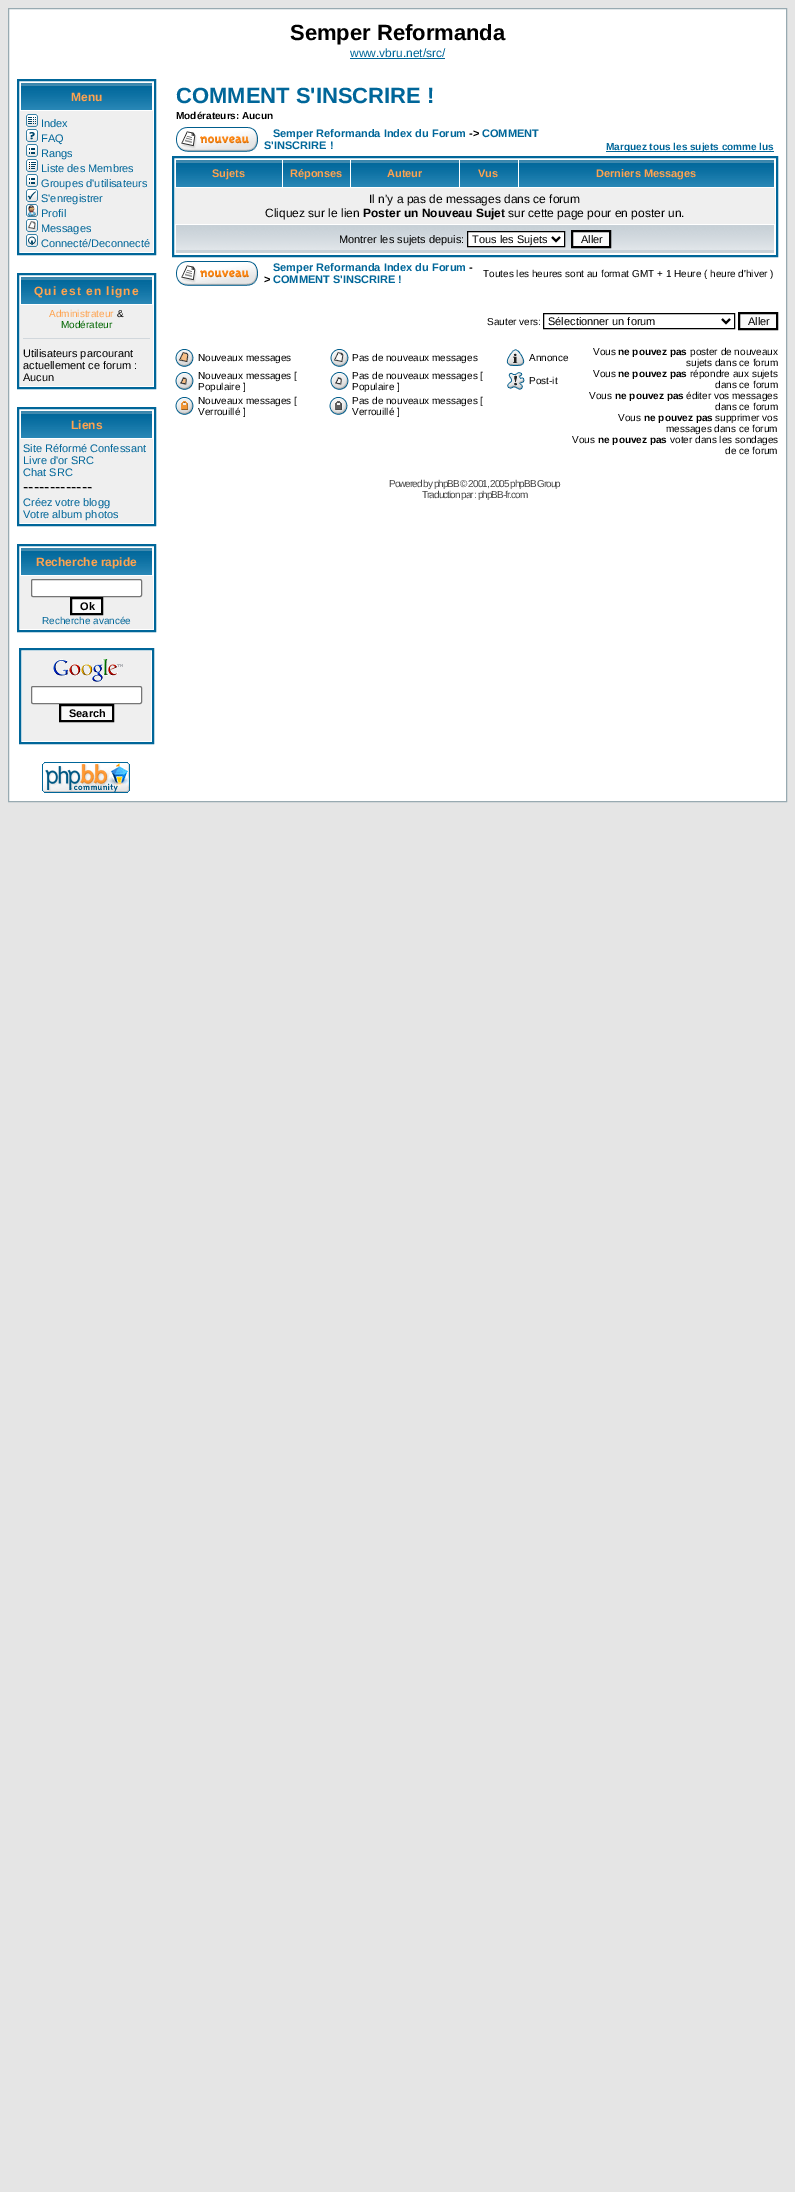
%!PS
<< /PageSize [795 2192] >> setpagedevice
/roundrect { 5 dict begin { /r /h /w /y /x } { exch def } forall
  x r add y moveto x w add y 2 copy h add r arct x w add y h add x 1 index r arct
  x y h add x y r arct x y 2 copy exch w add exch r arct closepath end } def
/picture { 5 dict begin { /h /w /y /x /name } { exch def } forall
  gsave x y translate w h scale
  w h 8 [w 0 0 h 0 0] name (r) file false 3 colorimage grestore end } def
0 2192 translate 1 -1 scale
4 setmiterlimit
0.898 setgray
0 0 795 2192 rectfill
1 setgray
newpath 8.5 8.5 moveto 786.5 8.5 lineto 786.5 801.5 lineto 8.5 801.5 lineto closepath gsave fill grestore
0.596 0.667 0.694 setrgbcolor
stroke
/LiberationSans-Bold [22 0 0 -22 0 0] selectfont
0 setgray
290 40 moveto (Semper Reformanda) show
/LiberationSans-Regular [12 0 0 -12 0 0] selectfont
0 0.4 0.6 setrgbcolor
350 57 moveto (www.vbru.net/src/) show
350 58 95 1 rectfill
2 setlinewidth
18 80 137 174 rectstroke
(img1.rgb) 21 83 131 27 picture
/LiberationSans-Bold [12 0 0 -12 0 0] selectfont
1 0.639 0.31 setrgbcolor
71 101 moveto (Menu) show
0.937 setgray
20 111 133 141 rectfill
(img2.rgb) 26 114 12 13 picture
/LiberationSans-Regular [11 0 0 -11 0 0] selectfont
0 0.4 0.6 setrgbcolor
41 127 moveto (Index) show
(img3.rgb) 26 129 12 13 picture
41 142 moveto (FAQ) show
(img4.rgb) 26 144 12 13 picture
41 157 moveto (Rangs) show
(img5.rgb) 26 159 12 13 picture
41 172 moveto (Liste des Membres) show
(img4.rgb) 26 174 12 13 picture
41 187 moveto (Groupes d'utilisateurs) show
(img6.rgb) 26 189 12 13 picture
41 202 moveto (S'enregistrer) show
(img7.rgb) 26 204 12 13 picture
41 217 moveto (Profil) show
(img8.rgb) 26 219 12 13 picture
41 232 moveto (Messages) show
(img9.rgb) 26 234 12 13 picture
41 247 moveto (Connecté/Deconnecté) show
18 274 137 114 rectstroke
(img1.rgb) 21 277 131 27 picture
/LiberationSans-Bold [12 0 0 -12 0 0] selectfont
1 0.639 0.31 setrgbcolor
34 295 moveto 1 0 (Qui est en ligne) ashow
0.937 setgray
20 305 133 81 rectfill
/LiberationSans-Regular [10 0 0 -10 0 0] selectfont
1 0.639 0.31 setrgbcolor
49 317 moveto (Administrateur) show
0 setgray
117 317 moveto (&) show
0 0.4 0 setrgbcolor
61 328 moveto (Modérateur) show
0.82 0.843 0.863 setrgbcolor
23 338 127 1 rectfill
/LiberationSans-Regular [11 0 0 -11 0 0] selectfont
0 setgray
23 357 moveto (Utilisateurs parcourant) show
23 369 moveto (actuellement ce forum :) show
23 381 moveto (Aucun) show
0 0.4 0.6 setrgbcolor
18 408 137 117 rectstroke
(img1.rgb) 21 411 131 27 picture
/LiberationSans-Bold [12 0 0 -12 0 0] selectfont
1 0.639 0.31 setrgbcolor
71 429 moveto (Liens) show
0.937 setgray
20 439 133 84 rectfill
/LiberationSans-Regular [11 0 0 -11 0 0] selectfont
0 0.4 0.6 setrgbcolor
23 452 moveto (Site Réformé Confessant) show
23 464 moveto (Livre d'or SRC) show
23 476 moveto (Chat SRC) show
/LiberationSans-Regular [16 0 0 -16 0 0] selectfont
0 setgray
23 492 moveto (-------------) show
/LiberationSans-Regular [11 0 0 -11 0 0] selectfont
0 0.4 0.6 setrgbcolor
23 506 moveto (Créez votre blogg) show
23 518 moveto (Votre album photos) show
18 545 137 86 rectstroke
(img1.rgb) 21 548 131 27 picture
/LiberationSans-Bold [12 0 0 -12 0 0] selectfont
1 0.639 0.31 setrgbcolor
36 566 moveto (Recherche rapide) show
0.937 setgray
20 576 133 53 rectfill
1 setgray
31.5 579.5 110 17 1.5 roundrect gsave fill grestore
0.463 setgray
1 setlinewidth
stroke
0.98 setgray
newpath 71 598 moveto 102 598 lineto 102 614 lineto 71 614 lineto closepath gsave fill grestore
0 setgray
2 setlinewidth
stroke
/LiberationSans-Bold [11 0 0 -11 0 0] selectfont
80 610 moveto (Ok) show
/LiberationSans-Regular [10 0 0 -10 0 0] selectfont
0 0.4 0.6 setrgbcolor
42 624 moveto (Recherche avancée) show
20 649 133 94 rectstroke
0.937 setgray
22 651 129 90 rectfill
(img10.rgb) 53 659 70 23 picture
1 setgray
31.5 686.5 110 17 1.5 roundrect gsave fill grestore
0.463 setgray
1 setlinewidth
stroke
0.98 setgray
newpath 60 705 moveto 113 705 lineto 113 721 lineto 60 721 lineto closepath gsave fill grestore
0 setgray
2 setlinewidth
stroke
/LiberationSans-Bold [11 0 0 -11 0 0] selectfont
69 717 moveto (Search) show
(img11.rgb) 42 762 88 31 picture
/LiberationSans-Bold [22 0 0 -22 0 0] selectfont
0 0.4 0.6 setrgbcolor
176 103 moveto (COMMENT S'INSCRIRE !) show
/LiberationSans-Bold [10 0 0 -10 0 0] selectfont
0 setgray
176 119 moveto (Modérateurs: Aucun) show
(img12.rgb) 176 127 82 25 picture
/LiberationSans-Bold [11 0 0 -11 0 0] selectfont
0 0.4 0.6 setrgbcolor
273 137 moveto (Semper Reformanda Index du Forum) show
0 setgray
469 137 moveto (->) show
0 0.4 0.6 setrgbcolor
482 137 moveto (COMMENT) show
264 149 moveto (S'INSCRIRE !) show
606 151 168 1 rectfill
/LiberationSans-Bold [10 0 0 -10 0 0] selectfont
606 150 moveto (Marquez tous les sujets comme lus) show
173 157 604 99 rectstroke
(img13.rgb) 176 160 106 27 picture
/LiberationSans-Bold [11 0 0 -11 0 0] selectfont
1 0.639 0.31 setrgbcolor
212 177 moveto (Sujets) show
(img14.rgb) 283 160 67 27 picture
290 177 moveto (Réponses) show
(img15.rgb) 351 160 108 27 picture
387 177 moveto (Auteur) show
(img16.rgb) 460 160 58 27 picture
478 177 moveto (Vus) show
(img17.rgb) 519 160 255 27 picture
596 177 moveto (Derniers Messages) show
0.937 setgray
175 188 600 36 rectfill
/LiberationSans-Regular [12 0 0 -12 0 0] selectfont
0 setgray
369 203 moveto (Il n'y a pas de messages dans ce forum) show
265 217 moveto (Cliquez sur le lien) show
/LiberationSans-Bold [12 0 0 -12 0 0] selectfont
363 217 moveto (Poster un Nouveau Sujet) show
/LiberationSans-Regular [12 0 0 -12 0 0] selectfont
508 217 moveto (sur cette page pour en poster un.) show
(img18.rgb) 176 225 598 28 picture
/LiberationSans-Regular [11 0 0 -11 0 0] selectfont
339 243 moveto (Montrer les sujets depuis:) show
1 setgray
newpath 467.5 231.5 moveto 564.5 231.5 lineto 564.5 246.5 lineto 467.5 246.5 lineto closepath gsave fill grestore
0 setgray
1 setlinewidth
stroke
2 setlinewidth
newpath 552 237 moveto 556 241 lineto 560 237 lineto stroke
472 243 moveto (Tous les Sujets) show
0.98 setgray
newpath 572 231 moveto 610 231 lineto 610 247 lineto 572 247 lineto closepath gsave fill grestore
0 setgray
stroke
581 243 moveto (Aller) show
(img12.rgb) 176 261 82 25 picture
/LiberationSans-Bold [11 0 0 -11 0 0] selectfont
0 0.4 0.6 setrgbcolor
273 271 moveto (Semper Reformanda Index du Forum) show
0 setgray
469 271 moveto (-) show
264 283 moveto (>) show
0 0.4 0.6 setrgbcolor
273 283 moveto (COMMENT S'INSCRIRE !) show
/LiberationSans-Regular [10 0 0 -10 0 0] selectfont
0 setgray
483 277 moveto (Toutes les heures sont au format GMT + 1 Heure \( heure d'hiver \)) show
487 325 moveto (Sauter vers:) show
1 setlinewidth
543.5 313.5 191 15 rectstroke
2 setlinewidth
newpath 722 319 moveto 726 323 lineto 730 319 lineto stroke
/LiberationSans-Regular [11 0 0 -11 0 0] selectfont
548 325 moveto (Sélectionner un forum) show
0.98 setgray
newpath 739 313 moveto 777 313 lineto 777 329 lineto 739 329 lineto closepath gsave fill grestore
0 setgray
stroke
748 325 moveto (Aller) show
(img19.rgb) 175 349 19 18 picture
/LiberationSans-Regular [10 0 0 -10 0 0] selectfont
198 361 moveto (Nouveaux messages) show
(img20.rgb) 330 349 19 18 picture
352 361 moveto (Pas de nouveaux messages) show
(img21.rgb) 506 349 19 17 picture
529 361 moveto (Annonce) show
(img22.rgb) 175 372 19 18 picture
198 379 moveto (Nouveaux messages [) show
198 390 moveto (Populaire ]) show
(img23.rgb) 330 372 19 18 picture
352 379 moveto (Pas de nouveaux messages [) show
352 390 moveto (Populaire ]) show
(img24.rgb) 507 372 18 18 picture
529 384 moveto (Post-it) show
(img25.rgb) 175 397 19 18 picture
198 404 moveto (Nouveaux messages [) show
198 415 moveto (Verrouillé ]) show
(img26.rgb) 329 397 19 18 picture
352 404 moveto (Pas de nouveaux messages [) show
352 415 moveto (Verrouillé ]) show
593 355 moveto (Vous) show
/LiberationSans-Bold [10 0 0 -10 0 0] selectfont
618 355 moveto (ne pouvez pas) show
/LiberationSans-Regular [10 0 0 -10 0 0] selectfont
690 355 moveto (poster de nouveaux) show
686 366 moveto (sujets dans ce forum) show
593 377 moveto (Vous) show
/LiberationSans-Bold [10 0 0 -10 0 0] selectfont
618 377 moveto (ne pouvez pas) show
/LiberationSans-Regular [10 0 0 -10 0 0] selectfont
690 377 moveto (répondre aux sujets) show
715 388 moveto (dans ce forum) show
589 399 moveto (Vous) show
/LiberationSans-Bold [10 0 0 -10 0 0] selectfont
615 399 moveto (ne pouvez pas) show
/LiberationSans-Regular [10 0 0 -10 0 0] selectfont
686 399 moveto (éditer vos messages) show
715 410 moveto (dans ce forum) show
618 421 moveto (Vous) show
/LiberationSans-Bold [10 0 0 -10 0 0] selectfont
644 421 moveto (ne pouvez pas) show
/LiberationSans-Regular [10 0 0 -10 0 0] selectfont
715 421 moveto (supprimer vos) show
666 432 moveto (messages dans ce forum) show
572 443 moveto (Vous) show
/LiberationSans-Bold [10 0 0 -10 0 0] selectfont
598 443 moveto (ne pouvez pas) show
/LiberationSans-Regular [10 0 0 -10 0 0] selectfont
670 443 moveto (voter dans les sondages) show
725 454 moveto (de ce forum) show
0.267 setgray
389 487 moveto -1 0 (Powered by phpBB © 2001, 2005 phpBB Group) ashow
422 498 moveto -1 0 (Traduction par : phpBB-fr.com) ashow
showpage
